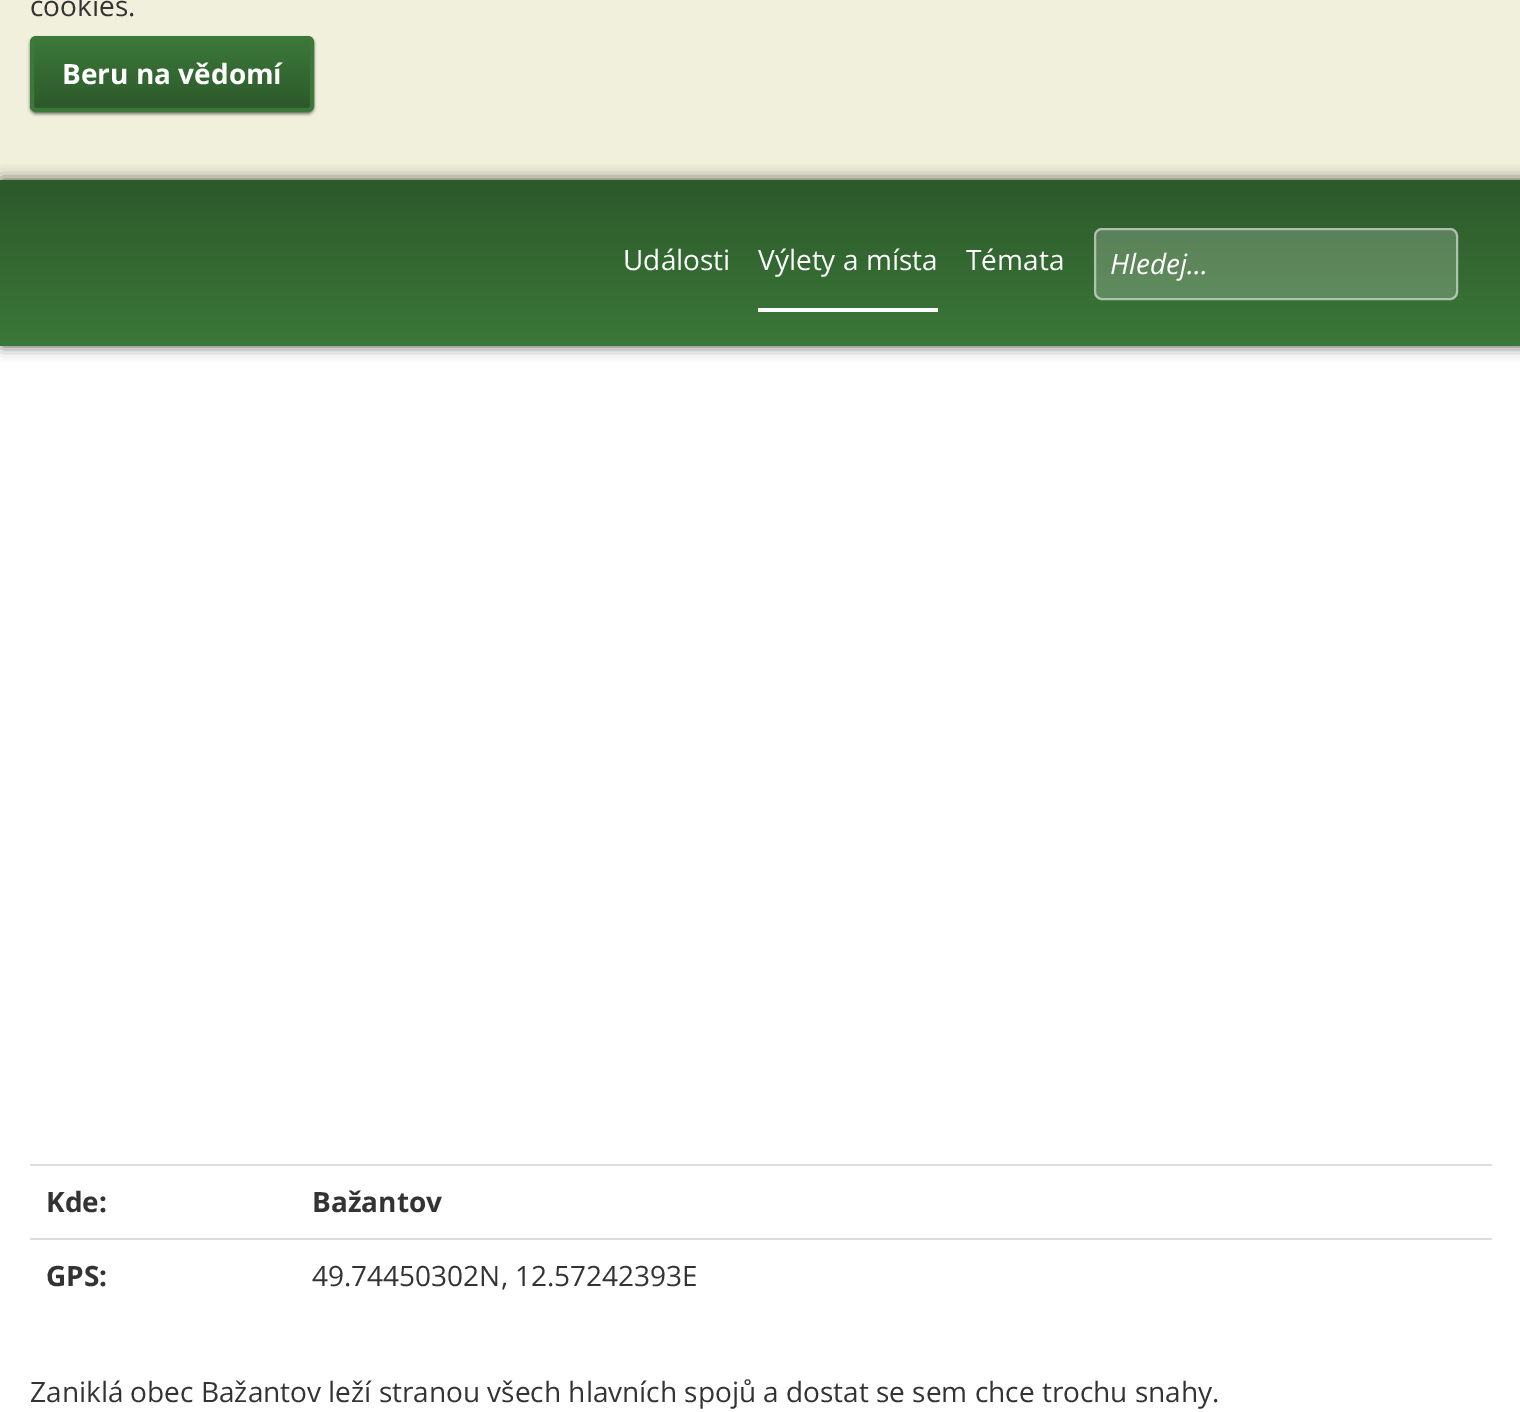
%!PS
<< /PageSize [1520 1412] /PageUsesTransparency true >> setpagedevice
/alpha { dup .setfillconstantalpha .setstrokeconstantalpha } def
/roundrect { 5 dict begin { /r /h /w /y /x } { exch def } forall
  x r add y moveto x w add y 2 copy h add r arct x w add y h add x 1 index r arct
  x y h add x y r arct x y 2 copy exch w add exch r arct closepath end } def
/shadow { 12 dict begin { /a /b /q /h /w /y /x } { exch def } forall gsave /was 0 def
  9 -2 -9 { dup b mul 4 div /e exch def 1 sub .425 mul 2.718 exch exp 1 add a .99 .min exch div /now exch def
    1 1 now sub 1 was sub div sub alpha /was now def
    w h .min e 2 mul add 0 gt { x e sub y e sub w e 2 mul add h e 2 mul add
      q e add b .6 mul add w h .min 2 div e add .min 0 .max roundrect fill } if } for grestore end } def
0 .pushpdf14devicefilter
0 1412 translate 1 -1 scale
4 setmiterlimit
0.941 0.941 0.863 setrgbcolor
0 0 1520 1412 rectfill
/OpenSans-Regular [28 0 0 -28 0 0] selectfont
0.2 setgray
30 16 moveto (cookies.) show
0 setgray
30 38 284 76 6 1.5 0.5 shadow
gsave
30 36 284 76 6 roundrect clip newpath
gsave newpath 30 40 moveto 314 40 lineto 314 108 lineto 30 108 lineto closepath clip newpath
<< /ShadingType 2 /ColorSpace /DeviceRGB /Coords [172 40 172 108] /Extend [true true] /Function << /FunctionType 2 /Domain [0 1] /C0 [0.231 0.471 0.224] /C1 [0.176 0.349 0.169] /N 1 >> >> shfill grestore
grestore
0.231 0.471 0.224 setrgbcolor
4 setlinewidth
32 38 280 72 4 roundrect stroke
/OpenSans-Bold [28 0 0 -28 0 0] selectfont
1 setgray
62 84 moveto (Beru na vědomí) show
0 346 1520 1066 rectfill
0 setgray
2 180 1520 166 0 7 0.7 shadow
gsave newpath 0 180 moveto 1520 180 lineto 1520 346 lineto 0 346 lineto closepath clip newpath
<< /ShadingType 2 /ColorSpace /DeviceRGB /Coords [760 180 760 346] /Extend [true true] /Function << /FunctionType 2 /Domain [0 1] /C0 [0.176 0.349 0.169] /C1 [0.231 0.471 0.224] /N 1 >> >> shfill grestore
/OpenSans-Regular [28 0 0 -28 0 0] selectfont
1 setgray
623 270 moveto (Události) show
758 270 moveto (Výlety a místa) show
758 308 180 4 rectfill
966 270 moveto (Témata) show
0.2 alpha
1094 228 364 72 8 roundrect fill
0.5 alpha
2 setlinewidth
1095 229 362 70 7 roundrect stroke
/OpenSans-Italic [28 0 0 -28 0 0] selectfont
1 alpha
1110 274 moveto (Hledej...) show
/OpenSans-Bold [28 0 0 -28 0 0] selectfont
0.2 setgray
46 1212 moveto (Kde:) show
0.867 setgray
30 1164 1462 2 rectfill
0.2 setgray
312 1212 moveto (Bažantov) show
46 1286 moveto (GPS:) show
0.867 setgray
30 1238 1462 2 rectfill
/OpenSans-Regular [28 0 0 -28 0 0] selectfont
0.2 setgray
312 1286 moveto (49.74450302N, 12.57242393E) show
30 1402 moveto (Zaniklá obec Bažantov leží stranou všech hlavních spojů a dostat se sem chce trochu snahy.) show
.poppdf14devicefilter showpage
